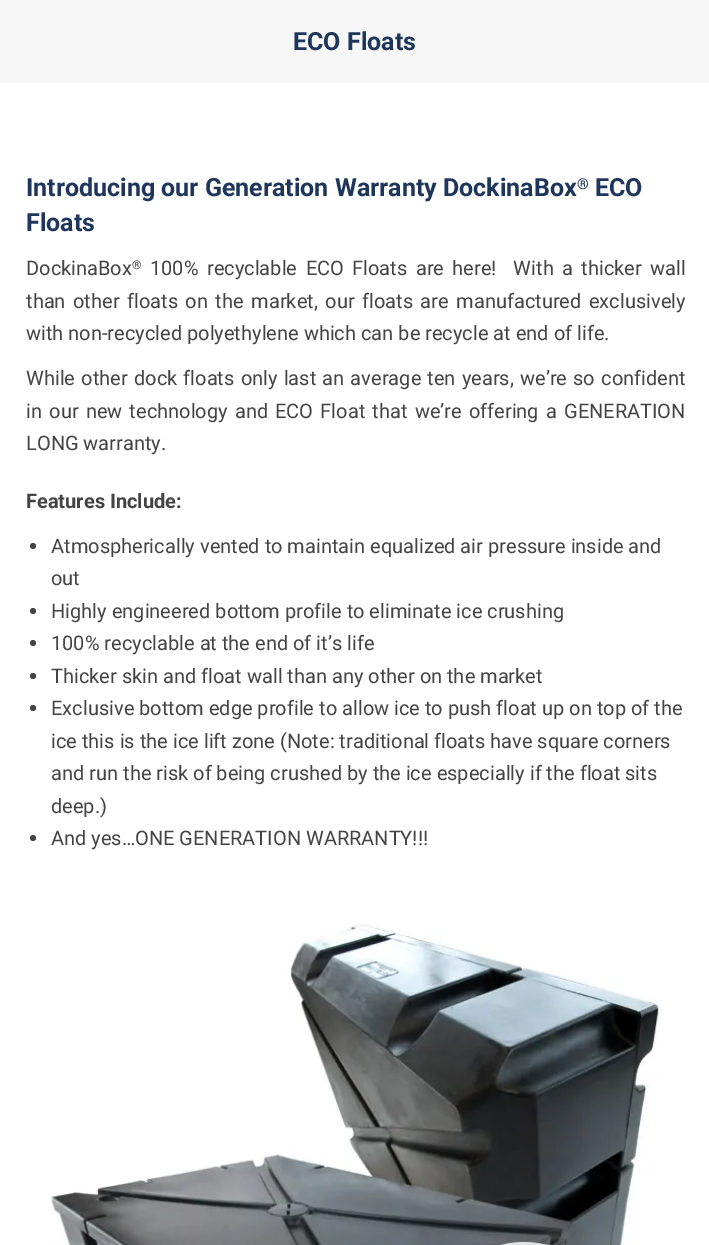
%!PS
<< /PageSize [709 1245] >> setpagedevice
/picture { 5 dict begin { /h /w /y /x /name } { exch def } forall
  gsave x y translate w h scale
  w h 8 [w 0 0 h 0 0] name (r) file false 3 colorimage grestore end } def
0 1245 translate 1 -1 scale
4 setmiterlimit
1 setgray
0 0 709 1245 rectfill
0.969 setgray
0 0 709 83 rectfill
/Roboto-Bold [25 0 0 -25 0 0] selectfont
0.122 0.212 0.361 setrgbcolor
293 50 moveto (ECO Floats) show
26 196 moveto (Introducing our Generation Warranty DockinaBox) show
/Roboto-Bold [15 0 0 -15 0 0] selectfont
577 189 moveto (®) show
/Roboto-Bold [25 0 0 -25 0 0] selectfont
595 196 moveto (ECO) show
26 231 moveto (Floats) show
/Roboto-Regular [20 0 0 -20 0 0] selectfont
0.267 setgray
26 275 moveto (DockinaBox) show
/Roboto-Regular [12 0 0 -12 0 0] selectfont
132 269 moveto (®) show
/Roboto-Regular [20 0 0 -20 0 0] selectfont
150 275 moveto 3.5 0 32 (100% recyclable ECO Floats are here!  With a thicker wall) widthshow
26 308 moveto 2.6 0 32 (than other floats on the market, our floats are manufactured exclusively) widthshow
26 340 moveto (with non-recycled polyethylene which can be recycle at end of life.) show
26 385 moveto 1.25 0 32 (While other dock floats only last an average ten years, we’re so confident) widthshow
26 418 moveto 2.25 0 32 (in our new technology and ECO Float that we’re offering a GENERATION) widthshow
26 450 moveto (LONG warranty.) show
/Roboto-Bold [20 0 0 -20 0 0] selectfont
26 508 moveto (Features Include:) show
newpath 33 546 3 0 360 arc closepath fill
/Roboto-Regular [20 0 0 -20 0 0] selectfont
51 553 moveto (Atmospherically vented to maintain equalized air pressure inside and) show
51 585 moveto (out) show
newpath 33 611 3 0 360 arc closepath fill
51 618 moveto (Highly engineered bottom profile to eliminate ice crushing) show
newpath 33 643 3 0 360 arc closepath fill
51 650 moveto (100% recyclable at the end of it’s life) show
newpath 33 676 3 0 360 arc closepath fill
51 683 moveto (Thicker skin and float wall than any other on the market) show
newpath 33 708 3 0 360 arc closepath fill
51 715 moveto (Exclusive bottom edge profile to allow ice to push float up on top of the) show
51 748 moveto (ice this is the ice lift zone \(Note: traditional floats have square corners) show
51 780 moveto (and run the risk of being crushed by the ice especially if the float sits) show
51 813 moveto (deep.\)) show
newpath 33 838 3 0 360 arc closepath fill
51 845 moveto (And yes…ONE GENERATION WARRANTY!!!) show
(img1.rgb) 51 924 610 321 picture
showpage
